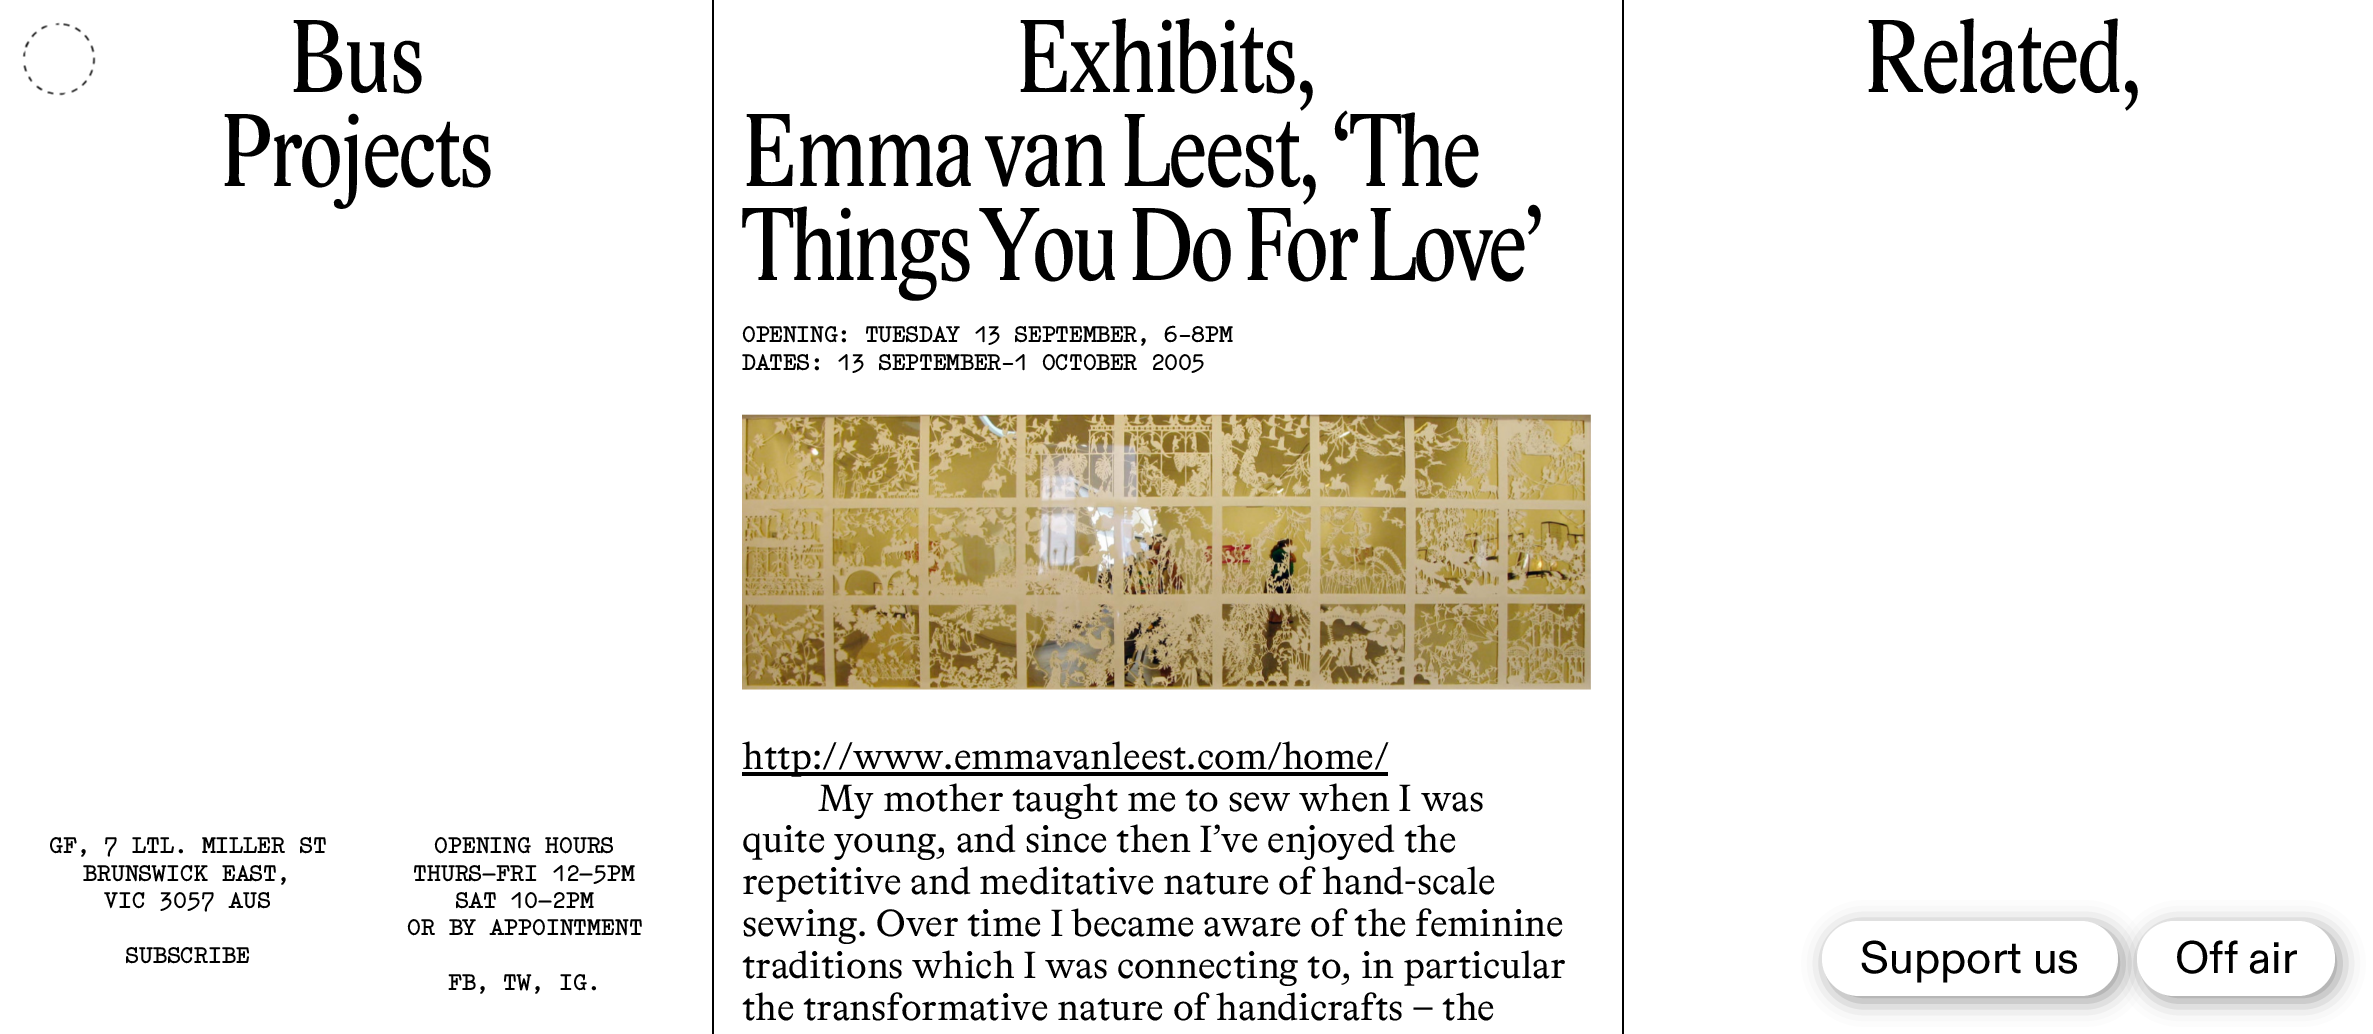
%!PS
<< /PageSize [2373 1034] /PageUsesTransparency true >> setpagedevice
/alpha { dup .setfillconstantalpha .setstrokeconstantalpha } def
/roundrect { 5 dict begin { /r /h /w /y /x } { exch def } forall
  x r add y moveto x w add y 2 copy h add r arct x w add y h add x 1 index r arct
  x y h add x y r arct x y 2 copy exch w add exch r arct closepath end } def
/shadow { 12 dict begin { /a /b /q /h /w /y /x } { exch def } forall gsave /was 0 def
  9 -2 -9 { dup b mul 4 div /e exch def 1 sub .425 mul 2.718 exch exp 1 add a .99 .min exch div /now exch def
    1 1 now sub 1 was sub div sub alpha /was now def
    w h .min e 2 mul add 0 gt { x e sub y e sub w e 2 mul add h e 2 mul add
      q e add b .6 mul add w h .min 2 div e add .min 0 .max roundrect fill } if } for grestore end } def
/picture { 5 dict begin { /h /w /y /x /name } { exch def } forall
  gsave x y translate w h scale
  w h 8 [w 0 0 h 0 0] name (r) file false 3 colorimage grestore end } def
0 .pushpdf14devicefilter
0 1034 translate 1 -1 scale
4 setmiterlimit
1 setgray
0 0 2373 1034 rectfill
(img1.rgb) 22 22 74 74 picture
/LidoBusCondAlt-Regular [106.25 0 0 -106.25 0 0] selectfont
0 setgray
289 92 moveto -2.1 0 (Bus) ashow
220 186 moveto -2.1 0 (Projects) ashow
/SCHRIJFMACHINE-Bold [22.75 0 0 -22.75 0 0] selectfont
49 853 moveto (GF, 7 LTL. MILLER ST) show
83 881 moveto (BRUNSWICK EAST,) show
104 908 moveto (VIC 3057 AUS) show
125 963 moveto (SUBSCRIBE) show
434 853 moveto (OPENING HOURS) show
413 881 moveto (THURS–FRI 12–5PM) show
455 908 moveto (SAT 10–2PM) show
407 935 moveto (OR BY APPOINTMENT) show
448 990 moveto (FB, TW, IG.) show
712 0 2 1034 rectfill
/LidoBusCondAlt-Regular [106.25 0 0 -106.25 0 0] selectfont
1016 92 moveto -2.1 0 (Exhibits,) ashow
742 186 moveto -2.1 0 (Emma van Leest,) ashow
1330 186 moveto -3.5 0 (‘The) ashow
742 280 moveto -3.5 0 (Things You Do For Love’) ashow
/SCHRIJFMACHINE-Bold [22.75 0 0 -22.75 0 0] selectfont
742 342 moveto -0.25 0 (OPENING: TUESDAY 13 SEPTEMBER, 6-8PM) ashow
742 370 moveto -0.25 0 (DATES: 13 SEPTEMBER-1 OCTOBER 2005) ashow
(img2.rgb) 742 414 849 276 picture
742 772 646 4 rectfill
/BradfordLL-Regular [38 0 0 -38 0 0] selectfont
742 769 moveto (http://www.emmavanleest.com/home/) show
818 811 moveto (My mother taught me to sew when I was) show
742 852 moveto (quite young, and since then I’ve enjoyed the) show
742 894 moveto (repetitive and meditative nature of hand-scale) show
742 936 moveto (sewing. Over time I became aware of the feminine) show
742 978 moveto (traditions which I was connecting to, in particular) show
742 1020 moveto (the transformative nature of handicrafts – the) show
1622 0 2 1034 rectfill
/LidoBusCondAlt-Regular [106.25 0 0 -106.25 0 0] selectfont
1864 92 moveto -2.1 0 (Related,) ashow
1827 926 296 75 37.5 11.5 0.4 shadow
1 setgray
1822 921 296 75 37.5 roundrect fill
/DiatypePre-Regular [45.5 0 0 -45.5 0 0] selectfont
0 setgray
1860 973 moveto (Support us) show
2142 926 198 75 37.5 11.5 0.4 shadow
1 setgray
2137 921 198 75 37.5 roundrect fill
0 setgray
2175 973 moveto (Off air) show
.poppdf14devicefilter showpage
